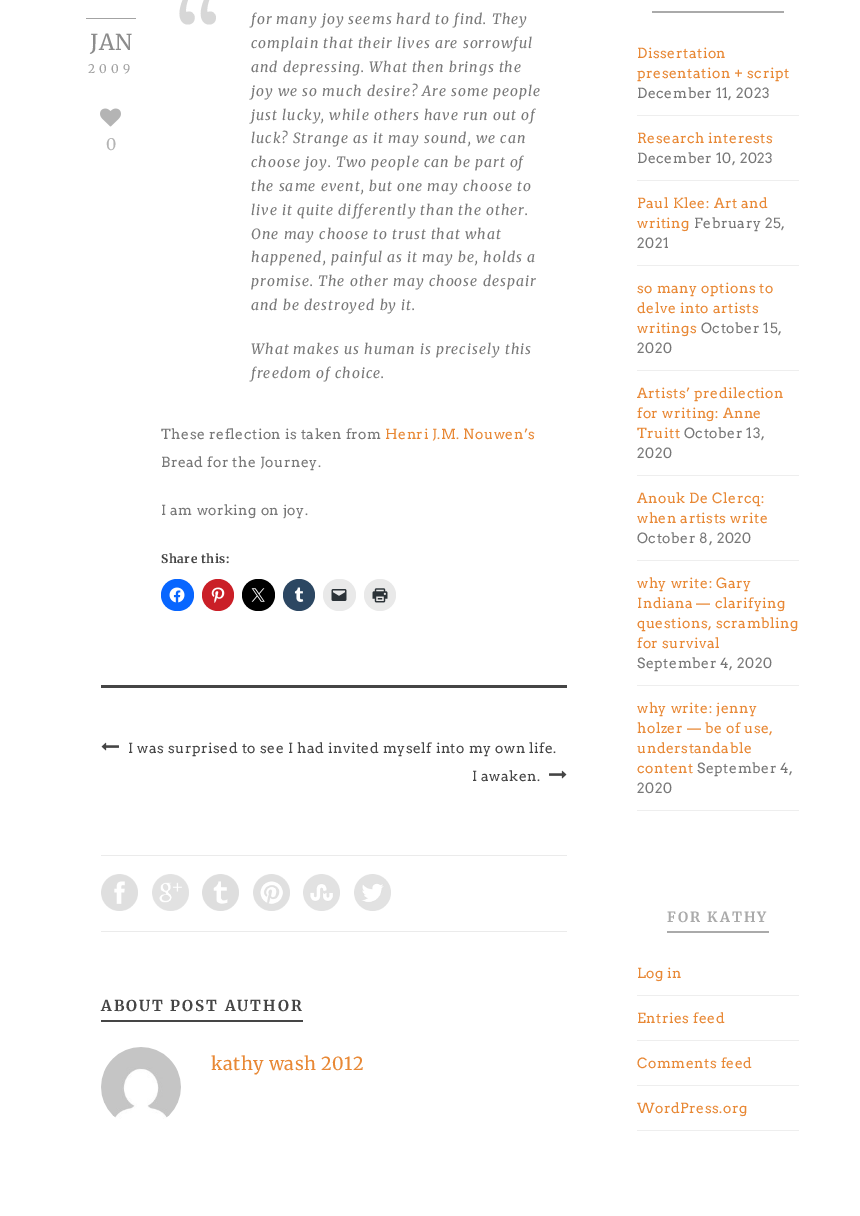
%!PS
<< /PageSize [860 1216] >> setpagedevice
/roundrect { 5 dict begin { /r /h /w /y /x } { exch def } forall
  x r add y moveto x w add y 2 copy h add r arct x w add y h add x 1 index r arct
  x y h add x y r arct x y 2 copy exch w add exch r arct closepath end } def
/picture { 5 dict begin { /h /w /y /x /name } { exch def } forall
  gsave x y translate w h scale
  w h 8 [w 0 0 h 0 0] name (r) file false 3 colorimage grestore end } def
0 1216 translate 1 -1 scale
4 setmiterlimit
1 setgray
0 0 860 1216 rectfill
0.639 setgray
86 18 50 1 rectfill
/Merriweather-Regular [22 0 0 -22 0 0] selectfont
0.549 setgray
90 50 moveto 0.5 0 (JAN) ashow
/Merriweather-Regular [12 0 0 -12 0 0] selectfont
0.635 setgray
88 73 moveto 4 0 (2009) ashow
(img1.rgb) 100 108 21 19 picture
/Merriweather-Regular [16 0 0 -16 0 0] selectfont
0.706 setgray
106 150 moveto 0.5 0 (0) ashow
(img2.rgb) 179 0 37 25 picture
/Merriweather-Italic [14 0 0 -14 0 0] selectfont
0.467 setgray
251 24 moveto 1 0 (for many joy seems hard to find. They) ashow
251 48 moveto 1 0 (complain that their lives are sorrowful) ashow
251 72 moveto 1 0 (and depressing. What then brings the) ashow
251 96 moveto 1 0 (joy we so much desire? Are some people) ashow
251 120 moveto 1 0 (just lucky, while others have run out of) ashow
251 143 moveto 1 0 (luck? Strange as it may sound, we can) ashow
251 167 moveto 1 0 (choose joy. Two people can be part of) ashow
251 191 moveto 1 0 (the same event, but one may choose to) ashow
251 215 moveto 1 0 (live it quite differently than the other.) ashow
251 239 moveto 1 0 (One may choose to trust that what) ashow
251 262 moveto 1 0 (happened, painful as it may be, holds a) ashow
251 286 moveto 1 0 (promise. The other may choose despair) ashow
251 310 moveto 1 0 (and be destroyed by it.) ashow
251 354 moveto 1 0 (What makes us human is precisely this) ashow
251 378 moveto 1 0 (freedom of choice.) ashow
/Arvo-Regular [14 0 0 -14 0 0] selectfont
161 439 moveto 0.5 0 (These reflection is taken from) ashow
0.91 0.533 0.208 setrgbcolor
385 439 moveto 0.5 0 (Henri J.M. Nouwen’s) ashow
0.467 setgray
161 467 moveto 0.5 0 (Bread for the Journey.) ashow
161 515 moveto 0.5 0 (I am working on joy.) ashow
/Merriweather-Bold [12 0 0 -12 0 0] selectfont
0.271 setgray
161 563 moveto 0.5 0 (Share this:) ashow
0.031 0.4 1 setrgbcolor
161 579 33 32 16 roundrect fill
(img3.rgb) 169 587 16 16 picture
0.792 0.122 0.153 setrgbcolor
newpath 218 595 16 0 360 arc closepath fill
(img4.rgb) 211 587 14 16 picture
0 setgray
242 579 33 32 16 roundrect fill
(img5.rgb) 251 588 14 14 picture
0.173 0.278 0.384 setrgbcolor
newpath 299 595 16 0 360 arc closepath fill
(img6.rgb) 294 587 10 15 picture
0.914 setgray
323 579 33 32 16 roundrect fill
(img7.rgb) 331 589 16 12 picture
newpath 380 595 16 0 360 arc closepath fill
(img8.rgb) 372 588 16 15 picture
0.271 setgray
101 685 466 3 rectfill
(img9.rgb) 101 742 18 9 picture
/Arvo-Regular [14 0 0 -14 0 0] selectfont
128 753 moveto 0.5 0 (I was surprised to see I had invited myself into my own life.) ashow
472 781 moveto 0.5 0 (I awaken.) ashow
(img10.rgb) 549 770 18 9 picture
0.922 setgray
101 855 466 1 rectfill
101 931 466 1 rectfill
(img11.rgb) 101 874 37 37 picture
(img12.rgb) 152 874 37 37 picture
(img13.rgb) 202 874 37 37 picture
(img14.rgb) 253 874 37 37 picture
(img15.rgb) 303 874 37 37 picture
(img16.rgb) 354 874 37 37 picture
0.271 setgray
101 1020 202 2 rectfill
/Merriweather-Bold [15 0 0 -15 0 0] selectfont
101 1011 moveto 2 0 (ABOUT POST AUTHOR) ashow
(img17.rgb) 101 1047 80 72 picture
/Merriweather-Regular [18 0 0 -18 0 0] selectfont
0.91 0.533 0.208 setrgbcolor
211 1070 moveto 0.5 0 (kathy wash 2012) ashow
0.667 setgray
652 11 132 2 rectfill
0.933 setgray
637 115 162 1 rectfill
/Arvo-Regular [14 0 0 -14 0 0] selectfont
0.91 0.533 0.208 setrgbcolor
637 58 moveto 0.5 0 (Dissertation) ashow
637 78 moveto 0.5 0 (presentation + script) ashow
0.467 setgray
637 98 moveto 0.5 0 (December 11, 2023) ashow
0.933 setgray
637 180 162 1 rectfill
0.91 0.533 0.208 setrgbcolor
637 143 moveto 0.5 0 (Research interests) ashow
0.467 setgray
637 163 moveto 0.5 0 (December 10, 2023) ashow
0.933 setgray
637 265 162 1 rectfill
0.91 0.533 0.208 setrgbcolor
637 208 moveto 0.5 0 (Paul Klee: Art and) ashow
637 228 moveto 0.5 0 (writing) ashow
0.467 setgray
694 228 moveto 0.5 0 (February 25,) ashow
637 248 moveto 0.5 0 (2021) ashow
0.933 setgray
637 370 162 1 rectfill
0.91 0.533 0.208 setrgbcolor
637 293 moveto 0.5 0 (so many options to) ashow
637 313 moveto 0.5 0 (delve into artists) ashow
637 333 moveto 0.5 0 (writings) ashow
0.467 setgray
701 333 moveto 0.5 0 (October 15,) ashow
637 353 moveto 0.5 0 (2020) ashow
0.933 setgray
637 475 162 1 rectfill
0.91 0.533 0.208 setrgbcolor
637 398 moveto 0.5 0 (Artists’ predilection) ashow
637 418 moveto 0.5 0 (for writing: Anne) ashow
637 438 moveto 0.5 0 (Truitt) ashow
0.467 setgray
684 438 moveto 0.5 0 (October 13,) ashow
637 458 moveto 0.5 0 (2020) ashow
0.933 setgray
637 560 162 1 rectfill
0.91 0.533 0.208 setrgbcolor
637 503 moveto 0.5 0 (Anouk De Clercq:) ashow
637 523 moveto 0.5 0 (when artists write) ashow
0.467 setgray
637 543 moveto 0.5 0 (October 8, 2020) ashow
0.933 setgray
637 685 162 1 rectfill
0.91 0.533 0.208 setrgbcolor
637 588 moveto 0.5 0 (why write: Gary) ashow
637 608 moveto 0.5 0 (Indiana — clarifying) ashow
637 628 moveto 0.5 0 (questions, scrambling) ashow
637 648 moveto 0.5 0 (for survival) ashow
0.467 setgray
637 668 moveto 0.5 0 (September 4, 2020) ashow
0.933 setgray
637 810 162 1 rectfill
0.91 0.533 0.208 setrgbcolor
637 713 moveto 0.5 0 (why write: jenny) ashow
637 733 moveto 0.5 0 (holzer — be of use,) ashow
637 753 moveto 0.5 0 (understandable) ashow
637 773 moveto 0.5 0 (content) ashow
0.467 setgray
697 773 moveto 0.5 0 (September 4,) ashow
637 793 moveto 0.5 0 (2020) ashow
0.667 setgray
667 931 102 2 rectfill
/Merriweather-Bold [14 0 0 -14 0 0] selectfont
667 922 moveto 2 0 (FOR KATHY) ashow
0.933 setgray
637 995 162 1 rectfill
/Arvo-Regular [14 0 0 -14 0 0] selectfont
0.91 0.533 0.208 setrgbcolor
637 978 moveto 0.5 0 (Log in) ashow
0.933 setgray
637 1040 162 1 rectfill
0.91 0.533 0.208 setrgbcolor
637 1023 moveto 0.5 0 (Entries feed) ashow
0.933 setgray
637 1085 162 1 rectfill
0.91 0.533 0.208 setrgbcolor
637 1068 moveto 0.5 0 (Comments feed) ashow
0.933 setgray
637 1130 162 1 rectfill
0.91 0.533 0.208 setrgbcolor
637 1113 moveto 0.5 0 (WordPress.org) ashow
showpage
